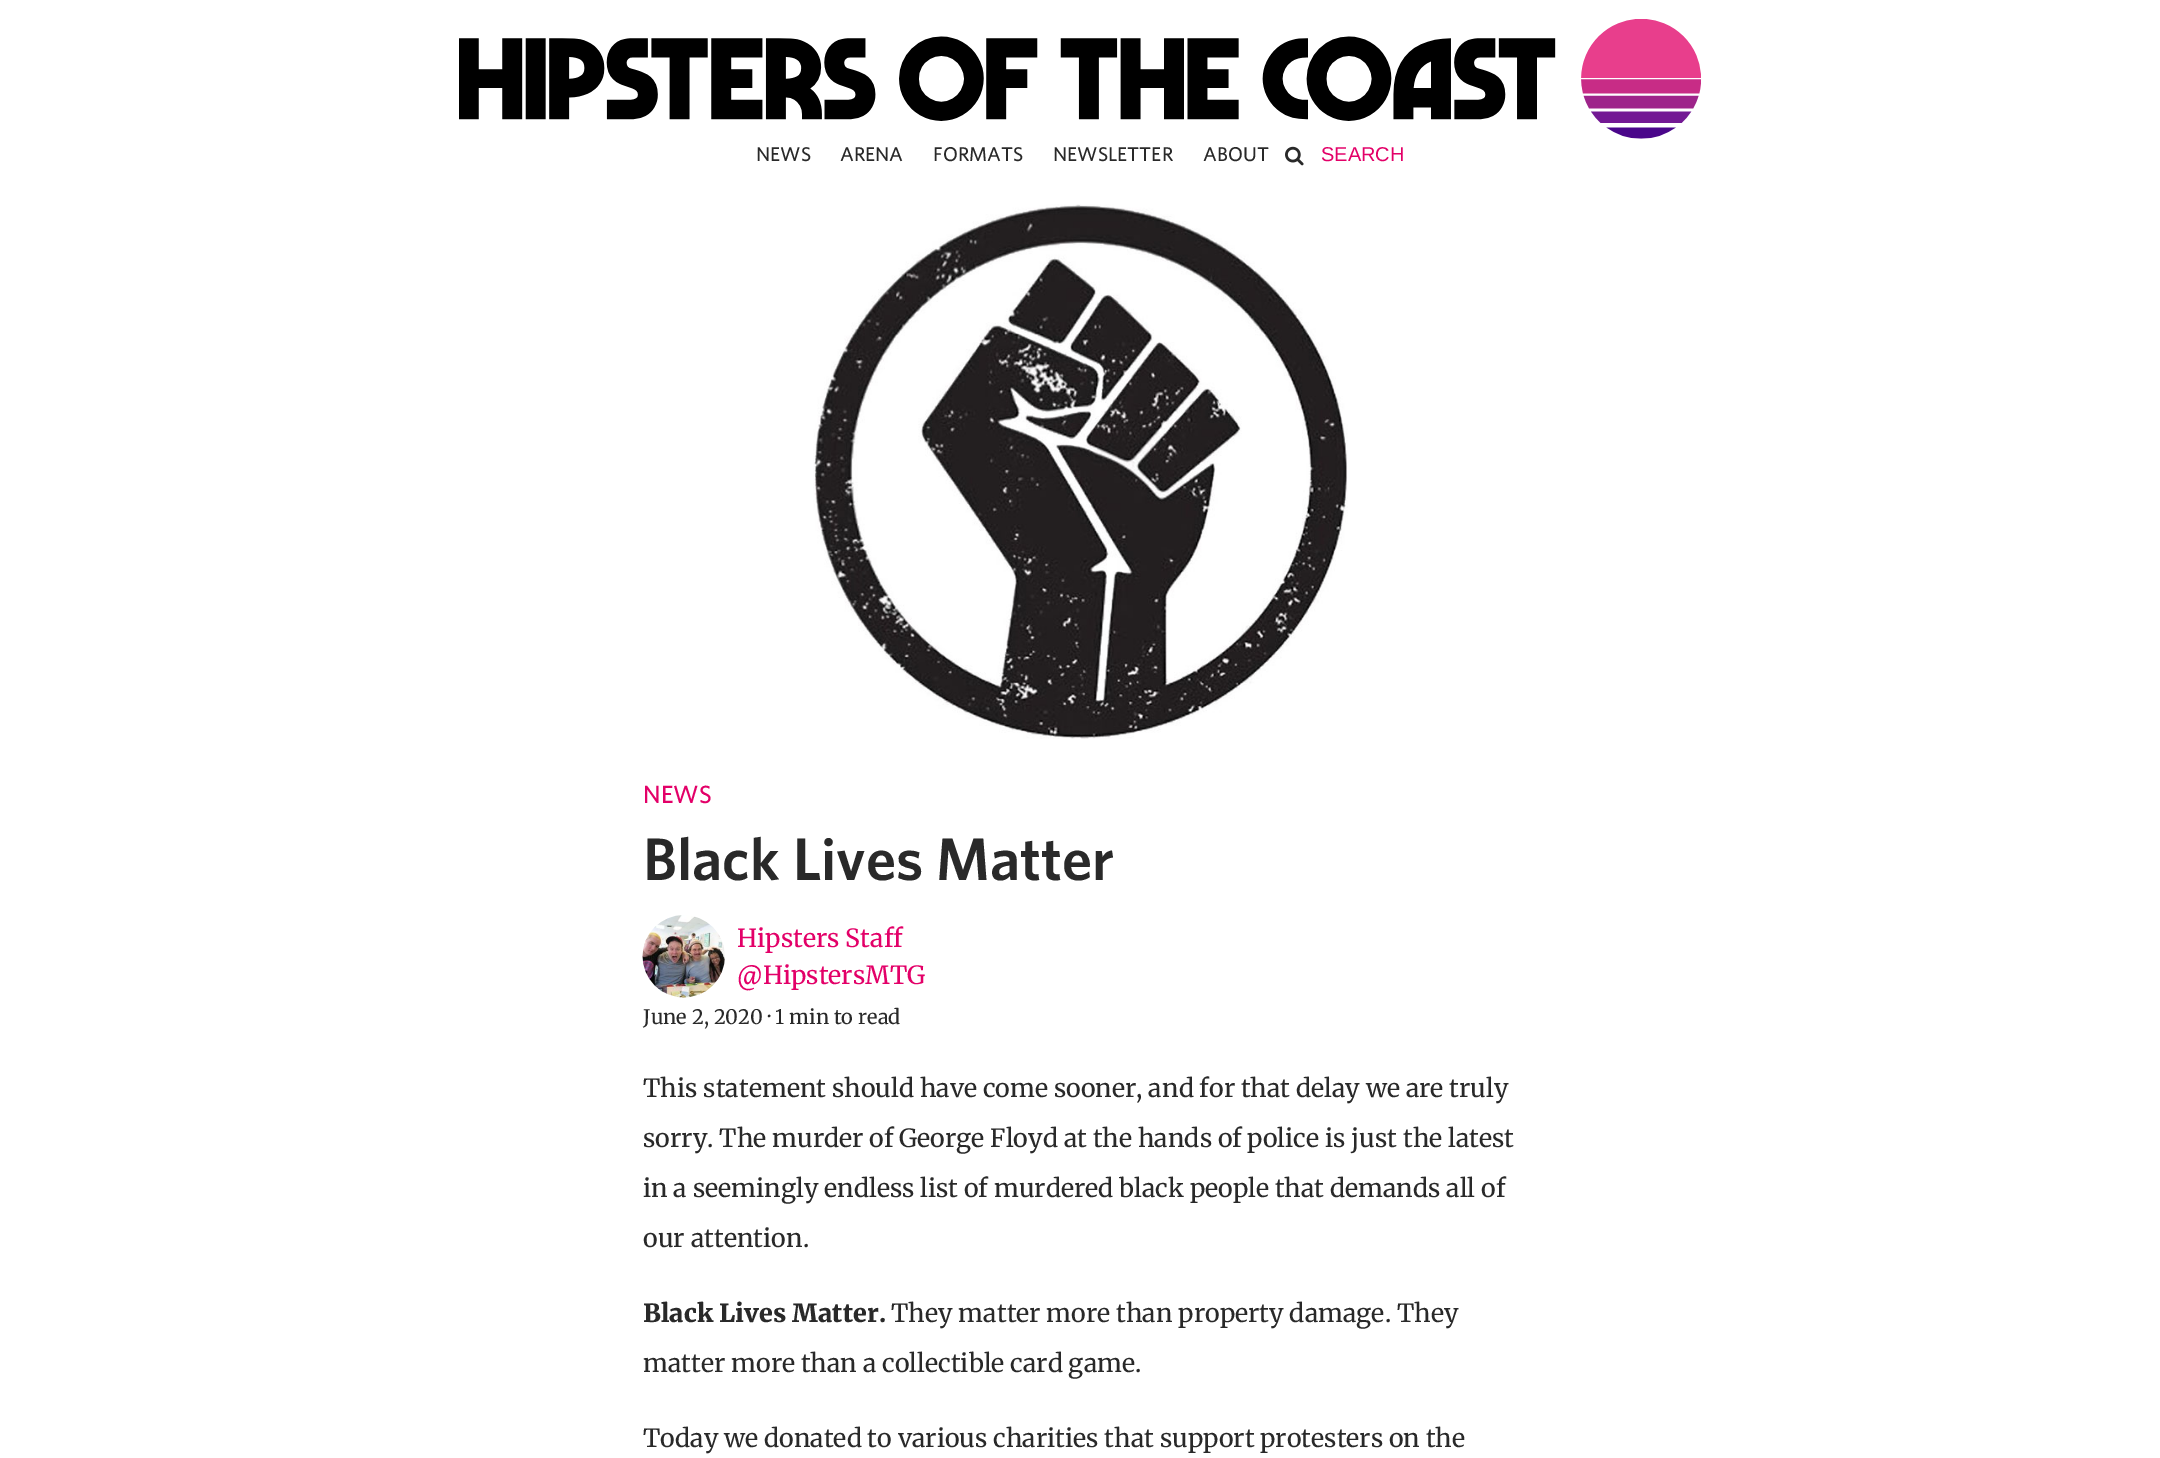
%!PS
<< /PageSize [2160 1458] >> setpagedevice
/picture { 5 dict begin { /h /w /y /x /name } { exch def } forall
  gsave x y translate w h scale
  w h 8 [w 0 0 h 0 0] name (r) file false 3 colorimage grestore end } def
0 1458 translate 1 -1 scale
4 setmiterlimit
1 setgray
0 0 2160 1458 rectfill
(img1.rgb) 459 19 1242 120 picture
/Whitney-Medium [20 0 0 -20 0 0] selectfont
0.161 setgray
756 161 moveto 0.05 0 (NEWS) ashow
840 161 moveto 0.05 0 (ARENA) ashow
933 161 moveto 0.05 0 (FORMATS) ashow
1053 161 moveto 0.05 0 (NEWSLETTER) ashow
1203 161 moveto 0.05 0 (ABOUT) ashow
(img2.rgb) 1285 146 19 20 picture
/LiberationSans-Regular [20 0 0 -20 0 0] selectfont
0.89 0 0.408 setrgbcolor
1321 161 moveto (SEARCH) show
(img3.rgb) 813 204 535 535 picture
/Whitney-Medium [25 0 0 -25 0 0] selectfont
643 803 moveto 0.05 0 (NEWS) ashow
/Whitney-SemiBold [60 0 0 -60 0 0] selectfont
0.161 setgray
643 880 moveto 0.05 0 (Black Lives Matter) ashow
(img4.rgb) 642 915 83 83 picture
/Merriweather-Regular [25 0 0 -25 0 0] selectfont
0.89 0 0.408 setrgbcolor
737 947 moveto 0.05 0 (Hipsters Staff) ashow
737 984 moveto 0.05 0 (@HipstersMTG) ashow
/Merriweather-Regular [20 0 0 -20 0 0] selectfont
0.161 setgray
643 1024 moveto 0.05 0 (June 2, 2020 · 1 min to read) ashow
/Merriweather-Regular [25 0 0 -25 0 0] selectfont
643 1097 moveto -0.25 0 32 0.05 0 (This statement should have come sooner, and for that delay we are truly) awidthshow
643 1147 moveto -0.25 0 32 0.05 0 (sorry. The murder of George Floyd at the hands of police is just the latest) awidthshow
643 1197 moveto -0.25 0 32 0.05 0 (in a seemingly endless list of murdered black people that demands all of) awidthshow
643 1247 moveto 0.05 0 (our attention.) ashow
/Merriweather-Black [25 0 0 -25 0 0] selectfont
643 1322 moveto 0.05 0 (Black Lives Matter.) ashow
/Merriweather-Regular [25 0 0 -25 0 0] selectfont
891 1322 moveto -0.25 0 32 0.05 0 (They matter more than property damage. They) awidthshow
643 1372 moveto -0.25 0 32 0.05 0 (matter more than a collectible card game.) awidthshow
643 1447 moveto -0.25 0 32 0.05 0 (Today we donated to various charities that support protesters on the) awidthshow
showpage
